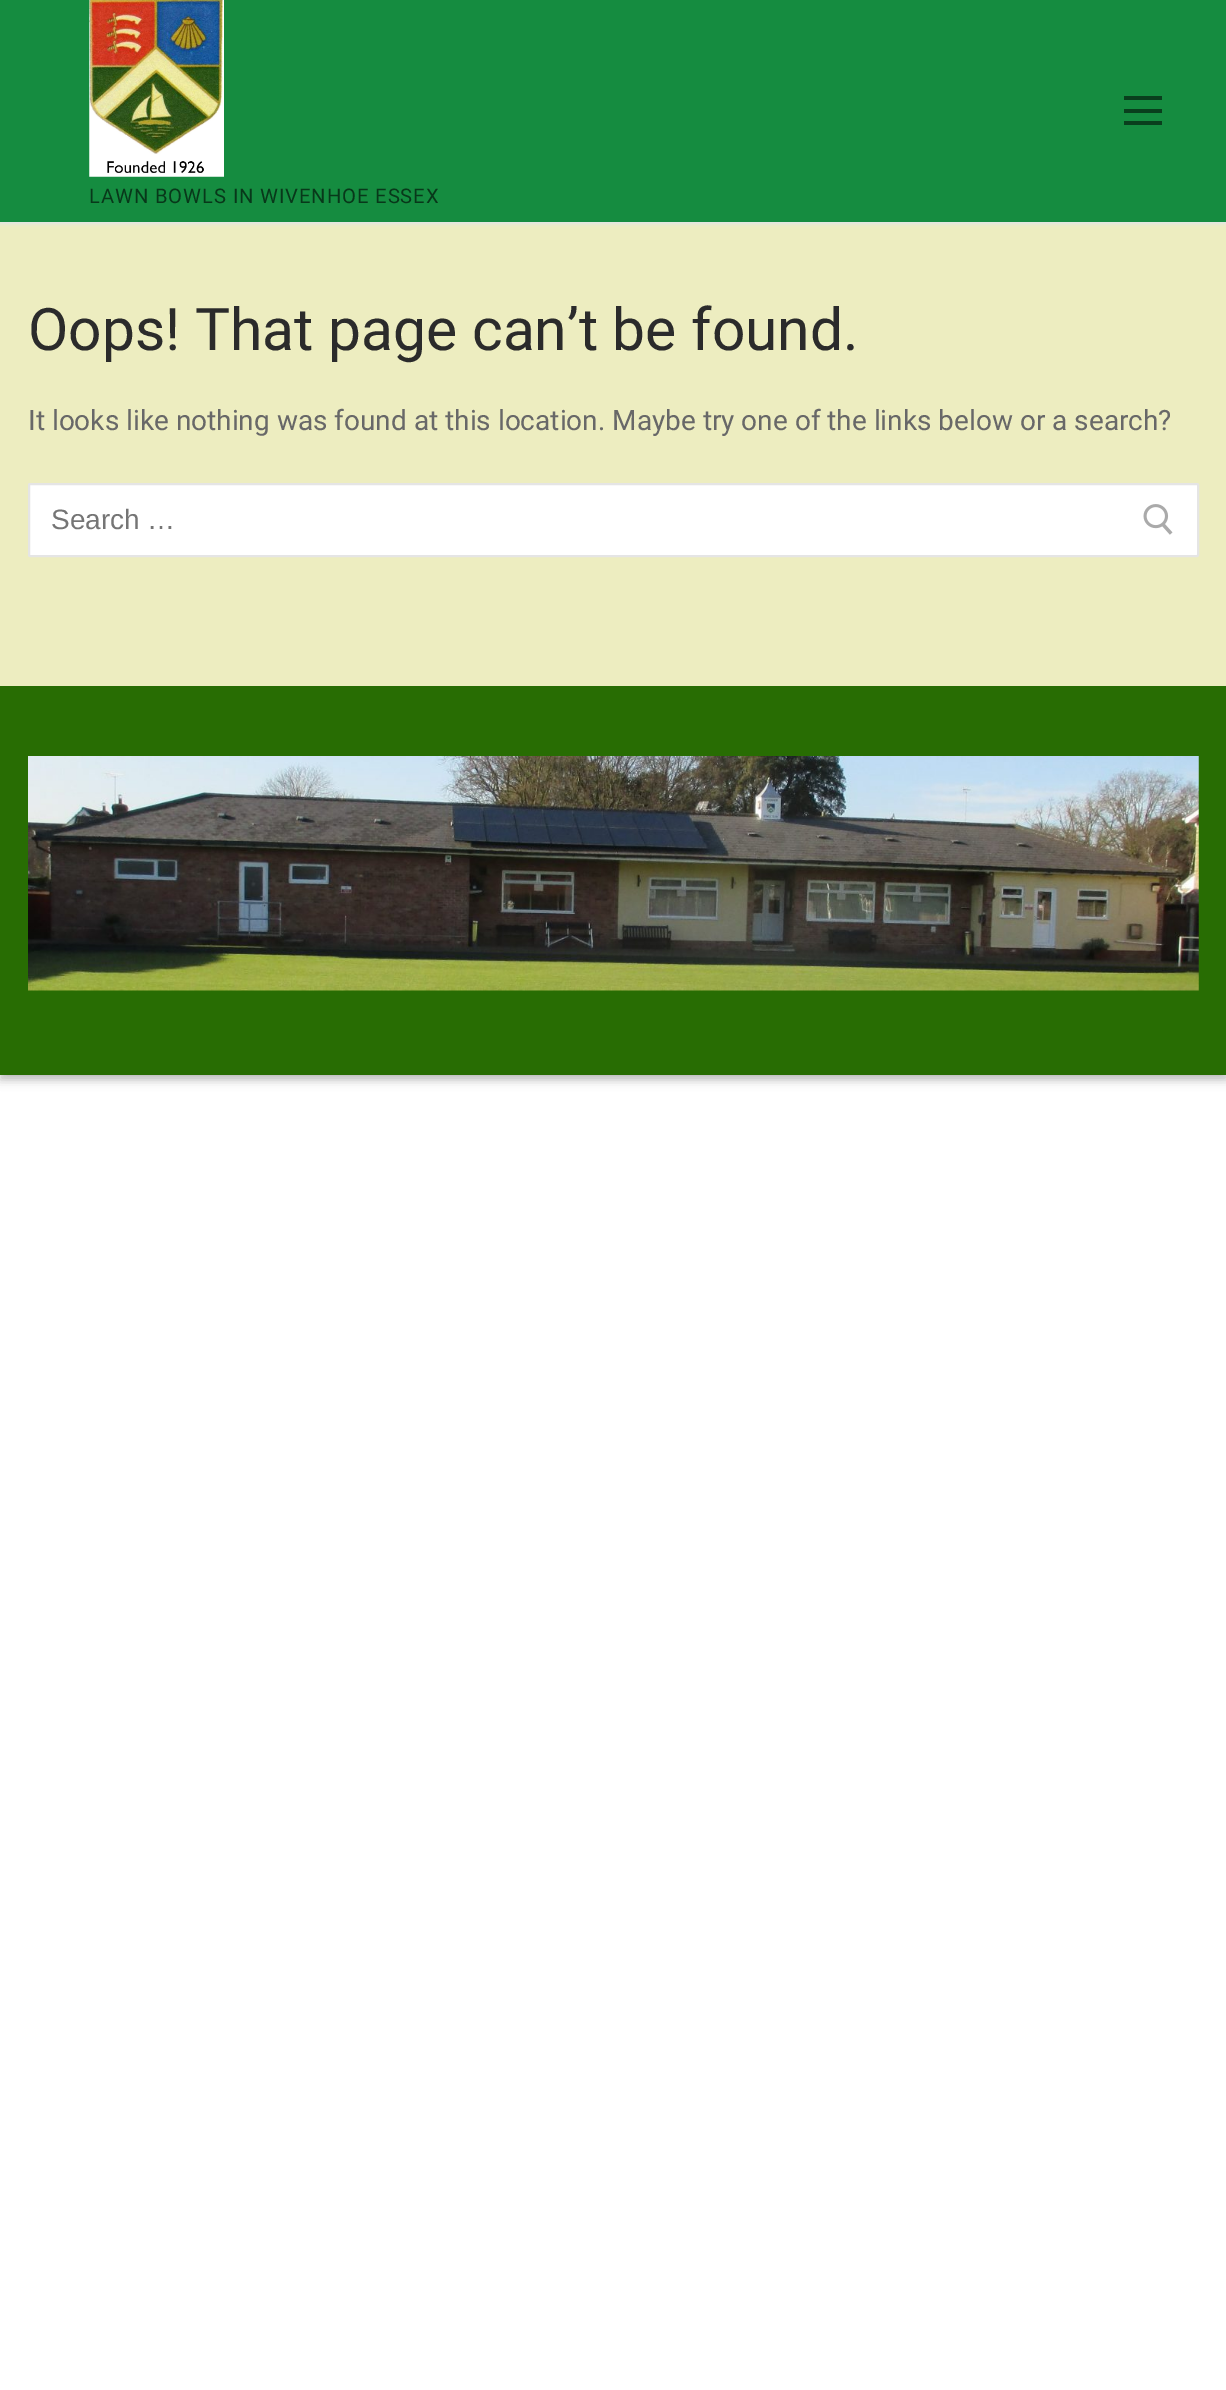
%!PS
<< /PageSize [1226 2390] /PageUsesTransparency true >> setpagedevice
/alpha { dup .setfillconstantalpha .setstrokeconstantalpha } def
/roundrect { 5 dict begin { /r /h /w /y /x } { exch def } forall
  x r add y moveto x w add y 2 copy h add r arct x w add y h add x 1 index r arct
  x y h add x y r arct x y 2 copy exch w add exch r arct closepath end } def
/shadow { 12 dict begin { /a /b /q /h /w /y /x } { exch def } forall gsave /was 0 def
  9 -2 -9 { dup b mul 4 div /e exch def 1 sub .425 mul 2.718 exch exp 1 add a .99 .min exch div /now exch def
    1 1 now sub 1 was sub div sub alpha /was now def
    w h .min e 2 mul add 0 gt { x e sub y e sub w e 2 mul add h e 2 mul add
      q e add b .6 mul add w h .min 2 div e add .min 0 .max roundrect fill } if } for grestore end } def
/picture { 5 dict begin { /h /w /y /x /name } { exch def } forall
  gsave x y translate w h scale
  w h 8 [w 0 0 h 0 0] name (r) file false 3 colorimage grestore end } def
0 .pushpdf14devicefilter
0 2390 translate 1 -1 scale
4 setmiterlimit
1 setgray
0 0 1226 2390 rectfill
0 setgray
0 5 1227 1075 0 5 0.23 shadow
7 12 1213 1061 0 5 0.16 shadow
0.929 0.929 0.753 setrgbcolor
0 222 1226 464 rectfill
0.882 0.898 0.918 setrgbcolor
0 2 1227 222 0 2 1 shadow
0.082 0.549 0.251 setrgbcolor
0 0 1226 222 rectfill
0.035 0.247 0.114 setrgbcolor
1124 109 38 4 rectfill
1124 96 38 4 rectfill
1124 121 38 4 rectfill
(img1.rgb) 89 0 135 177 picture
/Roboto-Regular [20.2 0 0 -20.2 0 0] selectfont
0.031 0.22 0.102 setrgbcolor
89 203 moveto 0.9 0 (LAWN BOWLS IN WIVENHOE ESSEX) ashow
/Roboto-Regular [58.75 0 0 -58.75 0 0] selectfont
0.169 setgray
28 350 moveto (Oops! That page can’t be found.) show
/Roboto-Regular [28 0 0 -28 0 0] selectfont
0.408 setgray
28 430 moveto (It looks like nothing was found at this location. Maybe try one of the links below or a search?) show
1 setgray
29 484 1169 72 1 roundrect gsave fill grestore
0.898 setgray
2 setlinewidth
stroke
/LiberationSans-Regular [28 0 0 -28 0 0] selectfont
0.459 setgray
51 529 moveto (Search …) show
(img2.rgb) 1143 504 30 31 picture
0.157 0.427 0.012 setrgbcolor
0 686 1226 389 rectfill
(img3.rgb) 28 756 1171 235 picture
.poppdf14devicefilter showpage
